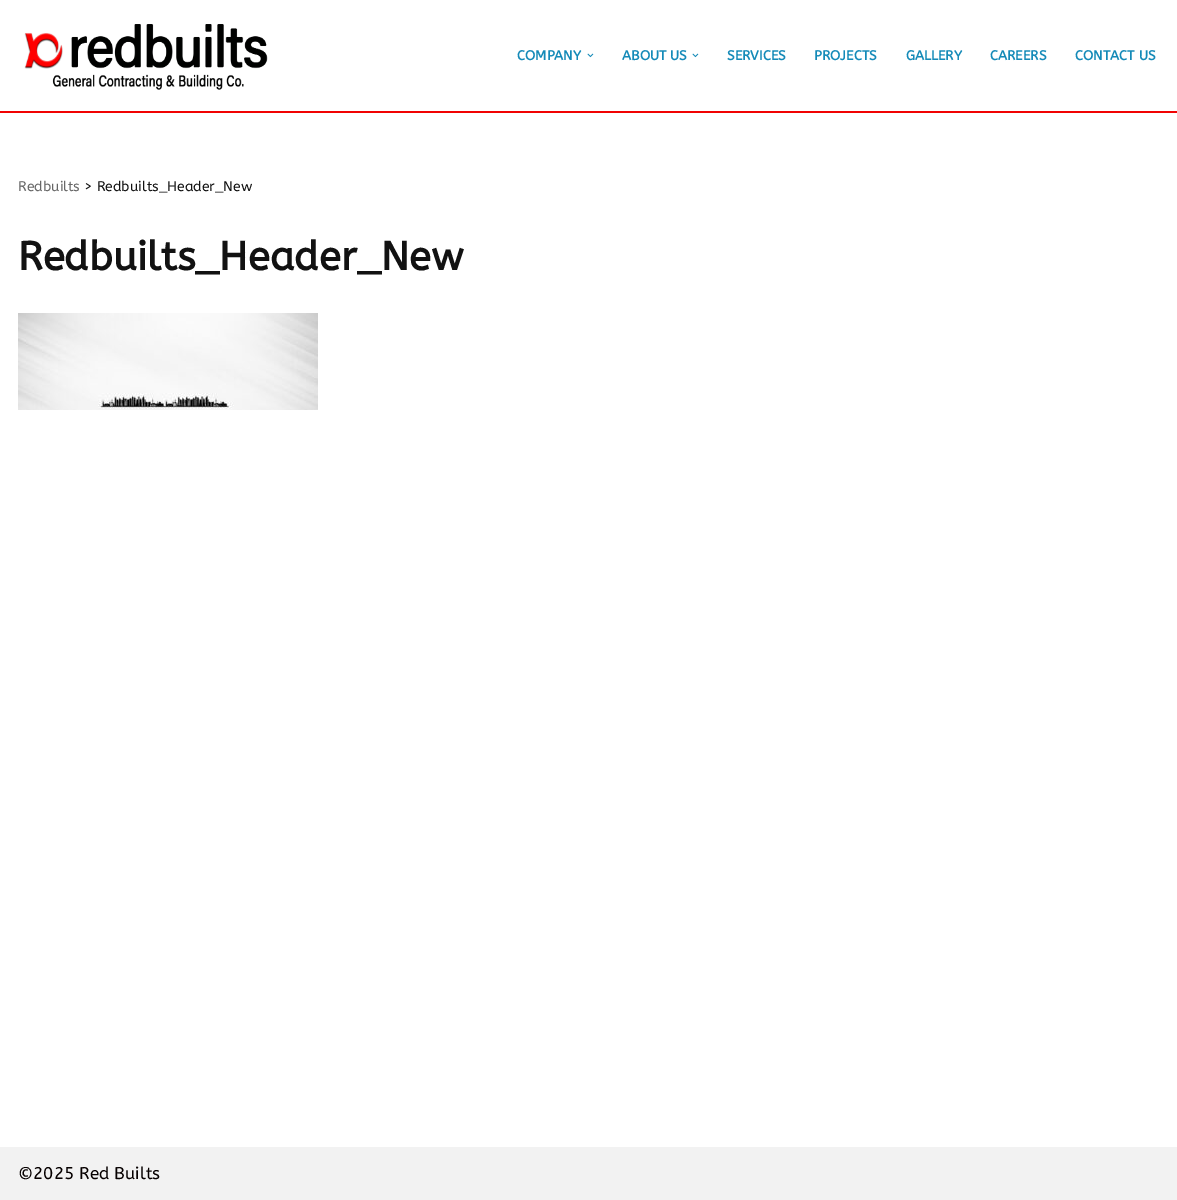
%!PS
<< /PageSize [1177 1200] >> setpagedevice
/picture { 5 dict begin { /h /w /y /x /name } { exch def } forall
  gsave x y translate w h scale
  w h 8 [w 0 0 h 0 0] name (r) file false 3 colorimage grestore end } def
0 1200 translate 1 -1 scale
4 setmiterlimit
1 setgray
0 0 1177 1200 rectfill
0.945 0.012 0.012 setrgbcolor
0 111 1177 2 rectfill
(img1.rgb) 24 24 244 66 picture
/ABeeZee-Bold [13.5 0 0 -13.5 0 0] selectfont
0.078 0.541 0.722 setrgbcolor
517 60 moveto (COMPANY) show
(img2.rgb) 587 53 7 5 picture
622 60 moveto (ABOUT US) show
(img2.rgb) 692 53 7 5 picture
727 60 moveto (SERVICES) show
814 60 moveto (PROJECTS) show
906 60 moveto (GALLERY) show
990 60 moveto (CAREERS) show
1075 60 moveto (CONTACT US) show
/ABeeZee-Regular [14 0 0 -14 0 0] selectfont
0.404 setgray
18 191 moveto (Redbuilts) show
0.071 setgray
84 191 moveto (> Redbuilts_Header_New) show
/ABeeZee-Bold [40 0 0 -40 0 0] selectfont
18 270 moveto (Redbuilts_Header_New) show
(img3.rgb) 18 313 300 97 picture
0.949 setgray
0 1147 1177 53 rectfill
/ABeeZee-Regular [17 0 0 -17 0 0] selectfont
0.024 0 0 setrgbcolor
18 1179 moveto (©2025 Red Builts) show
showpage
